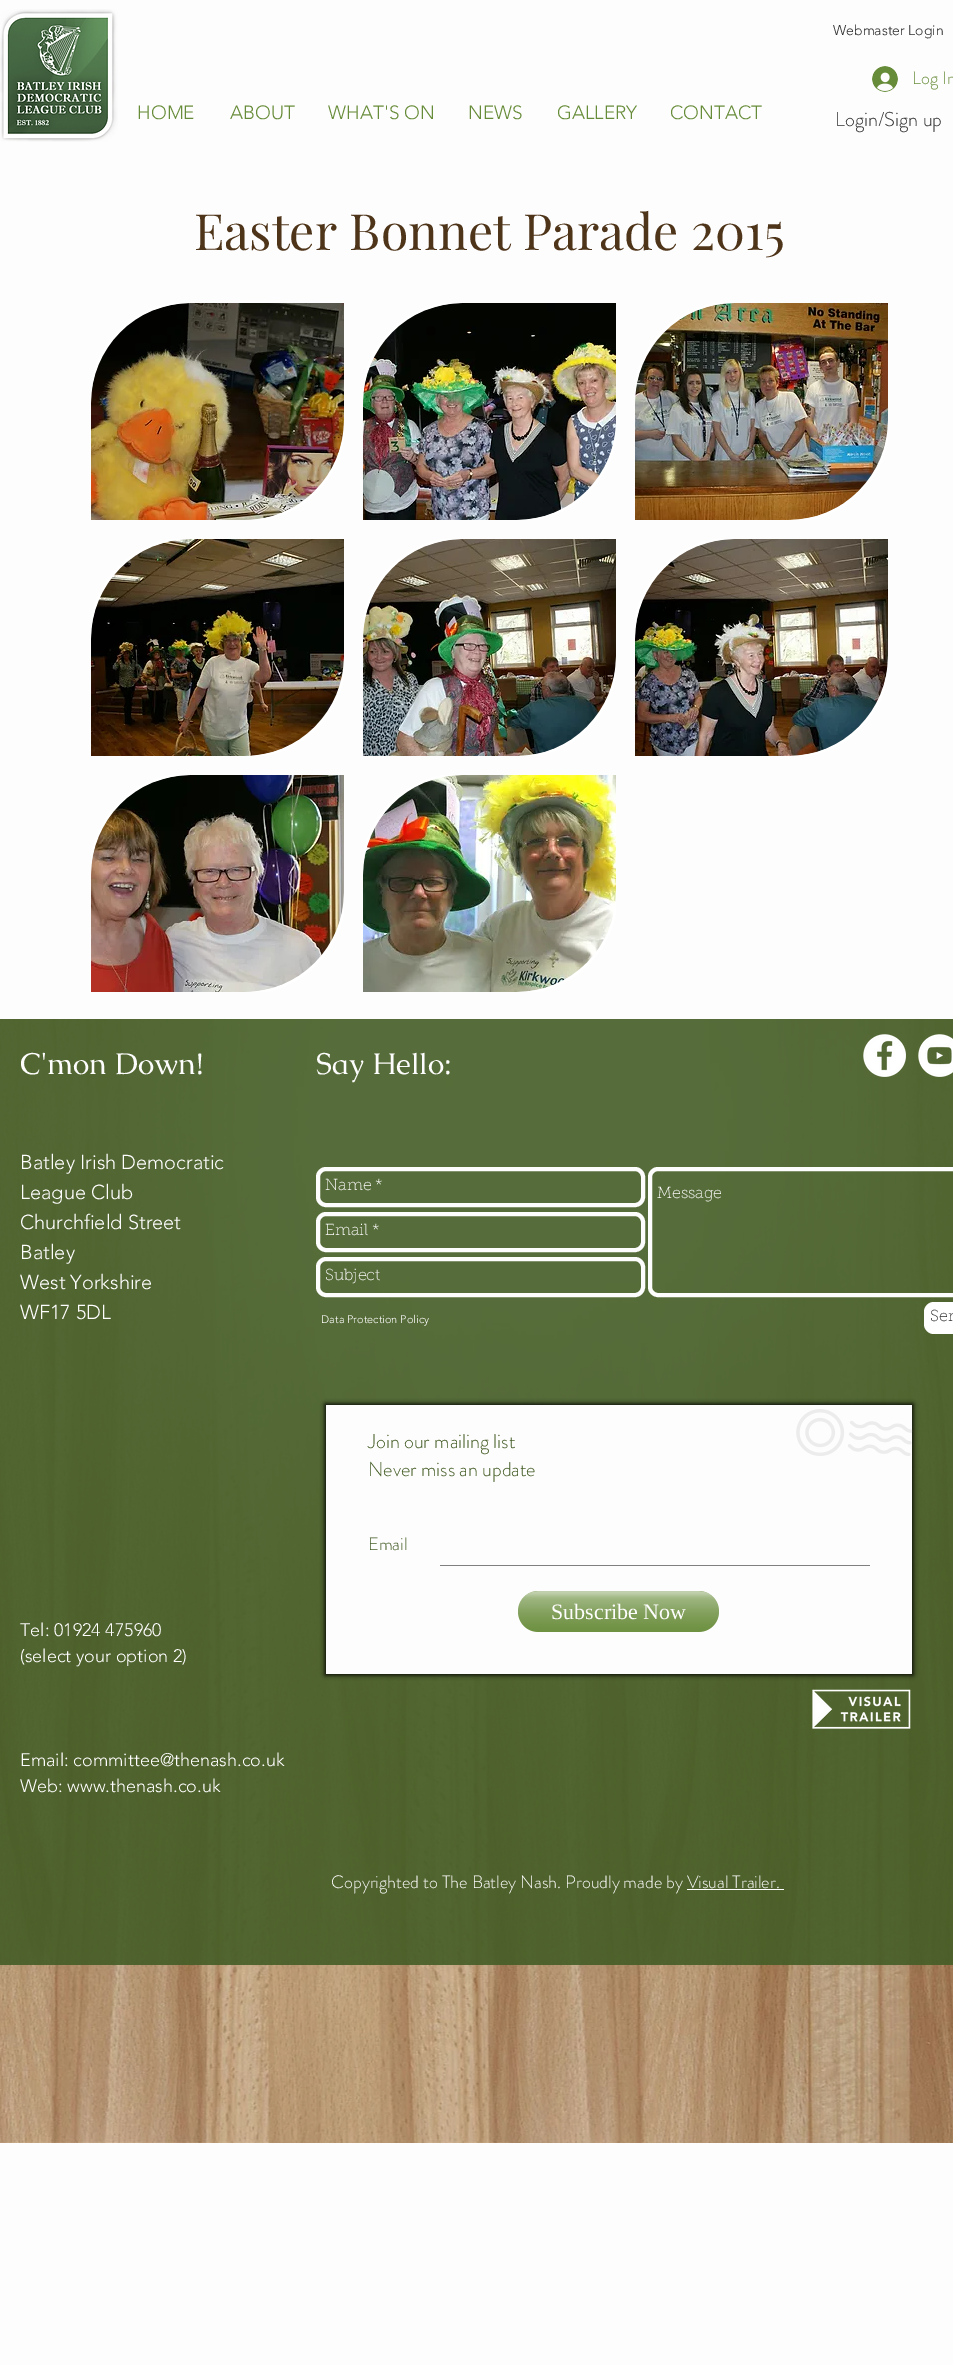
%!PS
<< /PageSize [953 2365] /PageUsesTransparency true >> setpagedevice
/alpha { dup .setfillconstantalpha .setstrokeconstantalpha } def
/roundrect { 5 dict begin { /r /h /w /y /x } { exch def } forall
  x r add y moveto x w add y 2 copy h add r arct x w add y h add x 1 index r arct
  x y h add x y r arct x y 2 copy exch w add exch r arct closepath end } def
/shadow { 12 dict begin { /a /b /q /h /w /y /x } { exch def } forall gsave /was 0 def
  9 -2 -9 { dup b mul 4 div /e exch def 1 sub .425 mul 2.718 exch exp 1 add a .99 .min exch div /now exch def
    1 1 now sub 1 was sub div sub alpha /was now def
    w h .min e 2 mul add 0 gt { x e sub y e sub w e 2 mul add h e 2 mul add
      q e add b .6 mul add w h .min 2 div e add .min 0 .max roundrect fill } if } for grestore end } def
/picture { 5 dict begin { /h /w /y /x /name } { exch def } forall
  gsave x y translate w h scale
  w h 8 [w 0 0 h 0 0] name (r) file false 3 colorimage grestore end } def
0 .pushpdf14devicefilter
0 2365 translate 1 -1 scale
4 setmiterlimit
0.996 0.992 0.992 setrgbcolor
0 0 953 2365 rectfill
(img1.rgb) 0 9 118 133 picture
/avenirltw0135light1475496-Light [14 0 0 -14 0 0] selectfont
0.18 setgray
833 35 moveto (Webmaster Login) show
(img2.rgb) 872 66 26 26 picture
/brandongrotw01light-Light [18 0 0 -18 0 0] selectfont
0.404 0.549 0.224 setrgbcolor
912 84 moveto (Log In) show
/avenirltw0135light1475496-Light [19 0 0 -19 0 0] selectfont
137 119 moveto (HOME) show
230 119 moveto (ABOUT) show
328 119 moveto (WHAT'S ON) show
468 119 moveto (NEWS) show
557 119 moveto (GALLERY) show
670 119 moveto (CONTACT) show
/brandongrotw01light-Light [20 0 0 -20 0 0] selectfont
0.18 setgray
835 126 moveto (Login/Sign up) show
/PlayfairDisplay-Regular [50 0 0 -50 0 0] selectfont
0.306 0.204 0.098 setrgbcolor
194 250 moveto (Easter Bonnet Parade 2015) show
(img3.rgb) 91 303 253 217 picture
(img4.rgb) 363 303 253 217 picture
(img5.rgb) 635 303 253 217 picture
(img6.rgb) 91 539 253 217 picture
(img7.rgb) 363 539 253 217 picture
(img8.rgb) 635 539 253 217 picture
(img9.rgb) 91 775 253 217 picture
(img10.rgb) 363 775 253 217 picture
(img16.rgb) 0 1019 953 1124 picture
0.9 alpha
0.267 0.365 0.149 setrgbcolor
0 1019 953 946 rectfill
/Caudex-Regular [30 0 0 -30 0 0] selectfont
1 alpha
0.996 0.992 0.992 setrgbcolor
20 1074 moveto (C'mon Down!) show
316 1074 moveto (Say Hello:) show
(img11.rgb) 863 1034 43 43 picture
(img12.rgb) 918 1034 35 43 picture
/avenirltw0135light1475496-Light [20 0 0 -20 0 0] selectfont
20 1169 moveto (Batley Irish Democratic) show
20 1199 moveto (League Club) show
20 1229 moveto (Churchfield Street) show
20 1259 moveto (Batley) show
20 1289 moveto (West Yorkshire) show
20 1319 moveto (WF17 5DL) show
4 setlinewidth
318 1169 325 36 8 roundrect stroke
/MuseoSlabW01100-Thin [16 0 0 -16 0 0] selectfont
325 1190 moveto (Name *) show
650 1169 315 126 8 roundrect stroke
657 1198 moveto (Message) show
318 1214 325 36 8 roundrect stroke
325 1235 moveto (Email *) show
318 1259 325 36 8 roundrect stroke
325 1280 moveto (Subject) show
1 setgray
924 1302 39 32 10 roundrect fill
0.18 setgray
930 1321 moveto (Sen) show
/avenirltw0135light1475496-Light [11 0 0 -11 0 0] selectfont
0.996 0.992 0.992 setrgbcolor
321 1323 moveto (Data Protection Policy) show
0 setgray
325 1404 588 271 0 2.5 1 shadow
0.996 0.992 0.992 setrgbcolor
326 1405 586 269 rectfill
/brandongrotw01light-Light [20 0 0 -20 0 0] selectfont
0.267 0.365 0.149 setrgbcolor
368 1448 moveto (Join our mailing list) show
(img13.rgb) 796 1409 117 47 picture
368 1476 moveto (Never miss an update) show
/brandongrotw01light-Light [18 0 0 -18 0 0] selectfont
368 1550 moveto (Email) show
0.498 setgray
440 1565 430 1 rectfill
0.404 0.549 0.224 setrgbcolor
518 1591 201 41 20 roundrect fill
(img14.rgb) 518 1591 201 41 picture
/LiberationSerif-Regular [22 0 0 -22 0 0] selectfont
0.996 0.992 0.992 setrgbcolor
551 1619 moveto (Subscribe Now) show
/avenirltw0135light1475496-Light [18 0 0 -18 0 0] selectfont
20 1636 moveto (Tel:) show
54 1636 moveto (01924 475960) show
20 1662 moveto (\(select your option 2\)) show
20 1766 moveto (Email: committee@thenash.co.uk) show
20 1792 moveto (Web: www.thenash.co.uk) show
(img15.rgb) 812 1689 99 40 picture
/brandongrotw01light-Light [18 0 0 -18 0 0] selectfont
331 1888 moveto (Copyrighted to The Batley Nash. Proudly made by Visual Trailer.) show
1 setgray
687 1889 97 1 rectfill
.poppdf14devicefilter showpage
